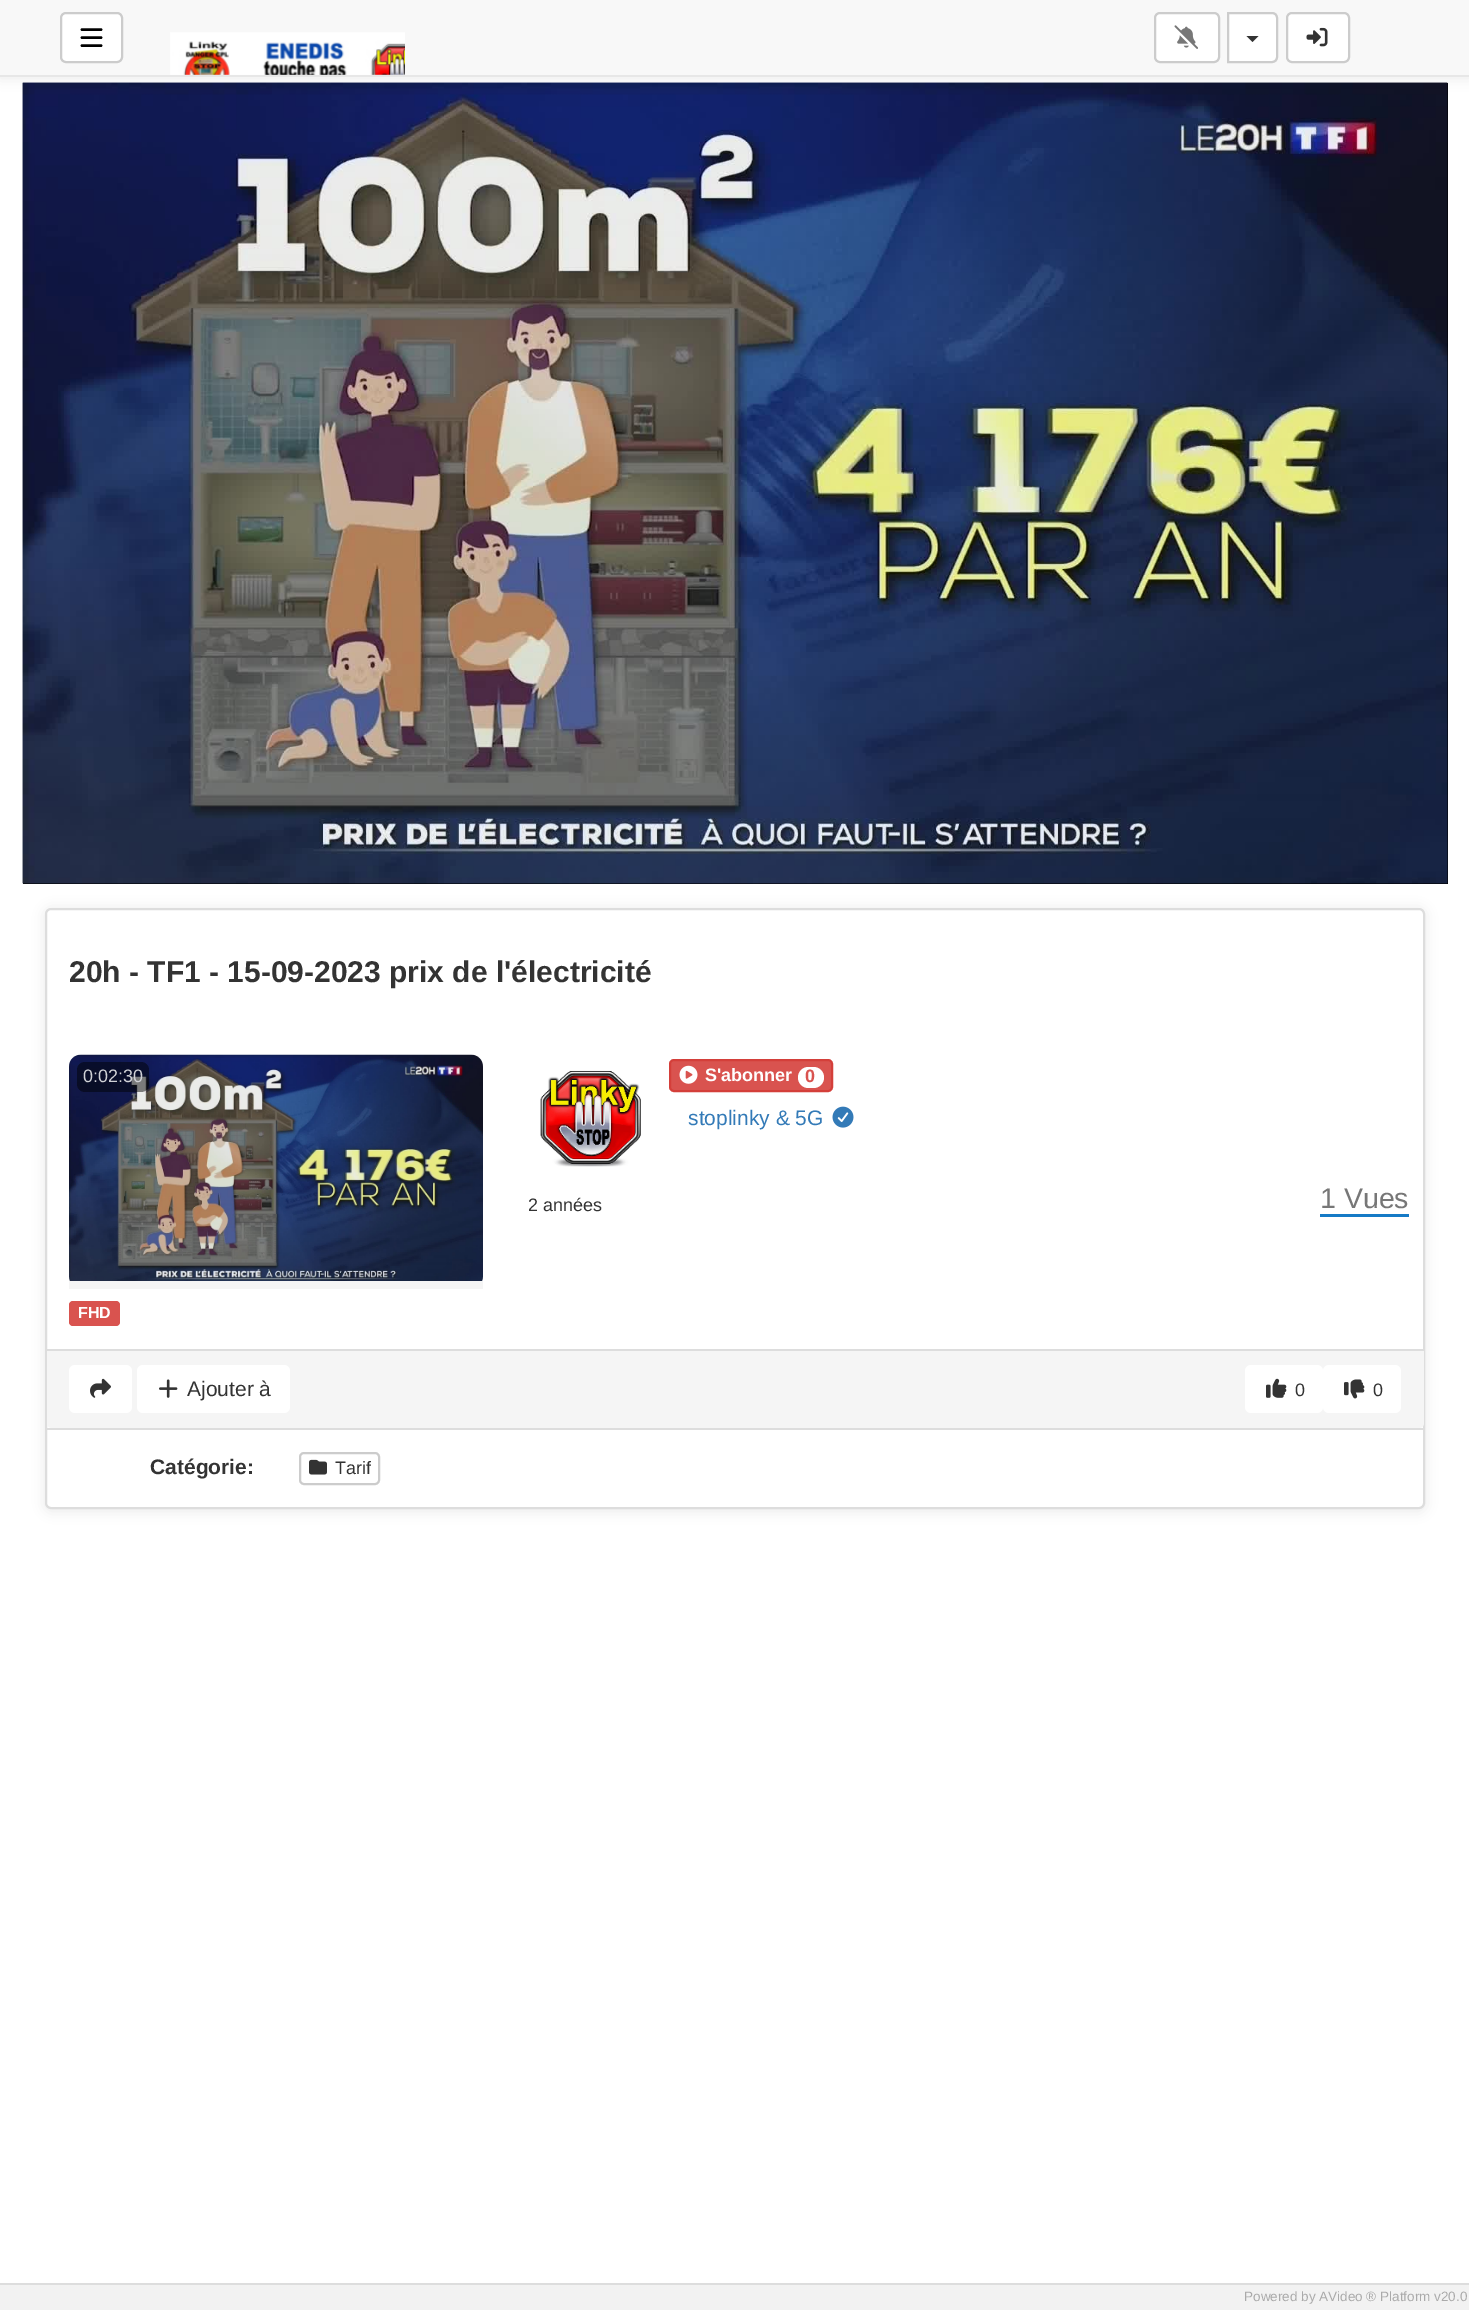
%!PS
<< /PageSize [1469 2310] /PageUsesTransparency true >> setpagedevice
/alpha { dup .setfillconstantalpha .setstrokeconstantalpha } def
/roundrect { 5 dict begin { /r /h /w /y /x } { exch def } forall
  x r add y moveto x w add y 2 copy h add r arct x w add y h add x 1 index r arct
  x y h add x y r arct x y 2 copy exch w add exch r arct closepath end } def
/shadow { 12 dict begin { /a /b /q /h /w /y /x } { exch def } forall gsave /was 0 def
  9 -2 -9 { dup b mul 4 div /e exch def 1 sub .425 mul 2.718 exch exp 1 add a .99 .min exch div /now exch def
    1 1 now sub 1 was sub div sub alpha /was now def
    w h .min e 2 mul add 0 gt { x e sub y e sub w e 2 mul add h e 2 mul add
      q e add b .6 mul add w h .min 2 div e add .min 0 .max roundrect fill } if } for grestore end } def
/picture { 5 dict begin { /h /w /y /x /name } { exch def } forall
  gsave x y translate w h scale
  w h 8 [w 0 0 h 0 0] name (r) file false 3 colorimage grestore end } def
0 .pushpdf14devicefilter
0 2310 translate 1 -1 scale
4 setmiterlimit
1 setgray
0 0 1469 2310 rectfill
0 setgray
23 83 1425 801 rectfill
(img4.rgb) 22 82 1426 802 picture
(img5.rgb) 22 82 1426 802 picture
0 2 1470 76 0 6 0.08 shadow
0.973 setgray
0 0 1469 75 rectfill
0.906 setgray
0 75 1469 2 rectfill
1 setgray
61 13 61 49 5 roundrect gsave fill grestore
0.8 setgray
2 setlinewidth
stroke
0 setgray
2.6 setlinewidth
1 setlinecap
newpath 82 29.5 moveto 101 29.5 lineto 82 37.5 moveto 101 37.5 lineto 82 45.5 moveto 101 45.5 lineto stroke
(img1.rgb) 170 32 235 43 picture
1 setgray
1155 13 64 49 5 roundrect gsave fill grestore
0.8 setgray
2 setlinewidth
0 setlinecap
stroke
(img2.rgb) 1174 25 24 24 picture
1 setgray
newpath 1228 13 moveto 1272 13 lineto 1275 13 1277 15 1277 18 curveto 1277 57 lineto 1277 60 1275 62 1272 62 curveto 1228 62 lineto closepath gsave fill grestore
0.8 setgray
stroke
0.2 setgray
newpath 1246.5 36 moveto 1258.5 36 lineto 1252.5 42 lineto closepath fill
1 setgray
1287 13 62 49 5 roundrect gsave fill grestore
0.8 setgray
stroke
(img3.rgb) 1306 27 22 20 picture
0 setgray
45 909 1380 602 6 6 0.08 shadow
1 setgray
46 909 1378 599 5 roundrect gsave fill grestore
0.867 setgray
stroke
/LiberationSans-Bold [30 0 0 -30 0 0] selectfont
0.2 setgray
69 982 moveto (20h - TF1 - 15-09-2023 prix de l'électricité) show
(img6.rgb) 69 1054 414 227 picture
0.48 alpha
0 setgray
77 1062 72 30 8 roundrect fill
/LiberationSans-Regular [18 0 0 -18 0 0] selectfont
1 alpha
0.816 0.82 0.839 setrgbcolor
83 1082 moveto (0:02:30) show
0.961 setgray
69 1281 414 8 rectfill
0.851 0.325 0.31 setrgbcolor
69 1301 51 25 4 roundrect fill
/LiberationSans-Bold [16 0 0 -16 0 0] selectfont
1 setgray
78 1318 moveto (FHD) show
(img7.rgb) 540 1070 101 97 picture
0.851 0.325 0.31 setrgbcolor
670 1060 162 31 4 roundrect gsave fill grestore
0.831 0.247 0.227 setrgbcolor
stroke
(img8.rgb) 679 1065 19 19 picture
/LiberationSans-Bold [18 0 0 -18 0 0] selectfont
1 setgray
705 1081 moveto (S'abonner) show
798 1067 26 21 10.5 roundrect fill
0.851 0.325 0.31 setrgbcolor
805 1082 moveto (0) show
/LiberationSans-Regular [21 0 0 -21 0 0] selectfont
0.2 0.478 0.718 setrgbcolor
688 1125 moveto (stoplinky & 5G) show
(img9.rgb) 832 1106 22 22 picture
/LiberationSans-Regular [18 0 0 -18 0 0] selectfont
0.2 setgray
528 1211 moveto (2 années) show
0.086 0.478 0.776 setrgbcolor
1320 1214 89 3 rectfill
/LiberationSans-Regular [28.5 0 0 -28.5 0 0] selectfont
0.467 setgray
1320 1208 moveto (1 Vues) show
0.961 setgray
newpath 47 1349 moveto 1424 1349 lineto 1424 1423 lineto 1424 1426 1422 1428 1419 1428 curveto 52 1428 lineto 49 1428 47 1426 47 1423 curveto closepath fill
0.867 setgray
47 1349 1377 2 rectfill
1 setgray
69 1365 63 48 6 roundrect fill
(img10.rgb) 90 1378 21 20 picture
137 1365 153 48 6 roundrect fill
(img11.rgb) 159 1379 19 19 picture
/LiberationSans-Regular [21 0 0 -21 0 0] selectfont
0.2 setgray
187 1396 moveto (Ajouter à) show
1 setgray
1245 1365 78 48 6 roundrect fill
(img12.rgb) 1266 1378 21 20 picture
/LiberationSans-Regular [18 0 0 -18 0 0] selectfont
0.2 setgray
1295 1396 moveto (0) show
1 setgray
1323 1365 78 48 6 roundrect fill
(img13.rgb) 1344 1379 21 20 picture
0.2 setgray
1373 1396 moveto (0) show
0.867 setgray
47 1428 1377 2 rectfill
/LiberationSans-Bold [21 0 0 -21 0 0] selectfont
0.2 setgray
150 1474 moveto (Catégorie:) show
0.8 setgray
300 1453 79 31 4 roundrect stroke
(img14.rgb) 309 1459 18 16 picture
/LiberationSans-Regular [18 0 0 -18 0 0] selectfont
0.2 setgray
335 1474 moveto (Tarif) show
0.949 setgray
0 2285 1469 25 rectfill
0.867 setgray
0 2283 1469 2 rectfill
/LiberationSans-Regular [13.5 0 0 -13.5 0 0] selectfont
0.667 setgray
1244 2301 moveto (Powered by AVideo ® Platform v20.0) show
.poppdf14devicefilter showpage
